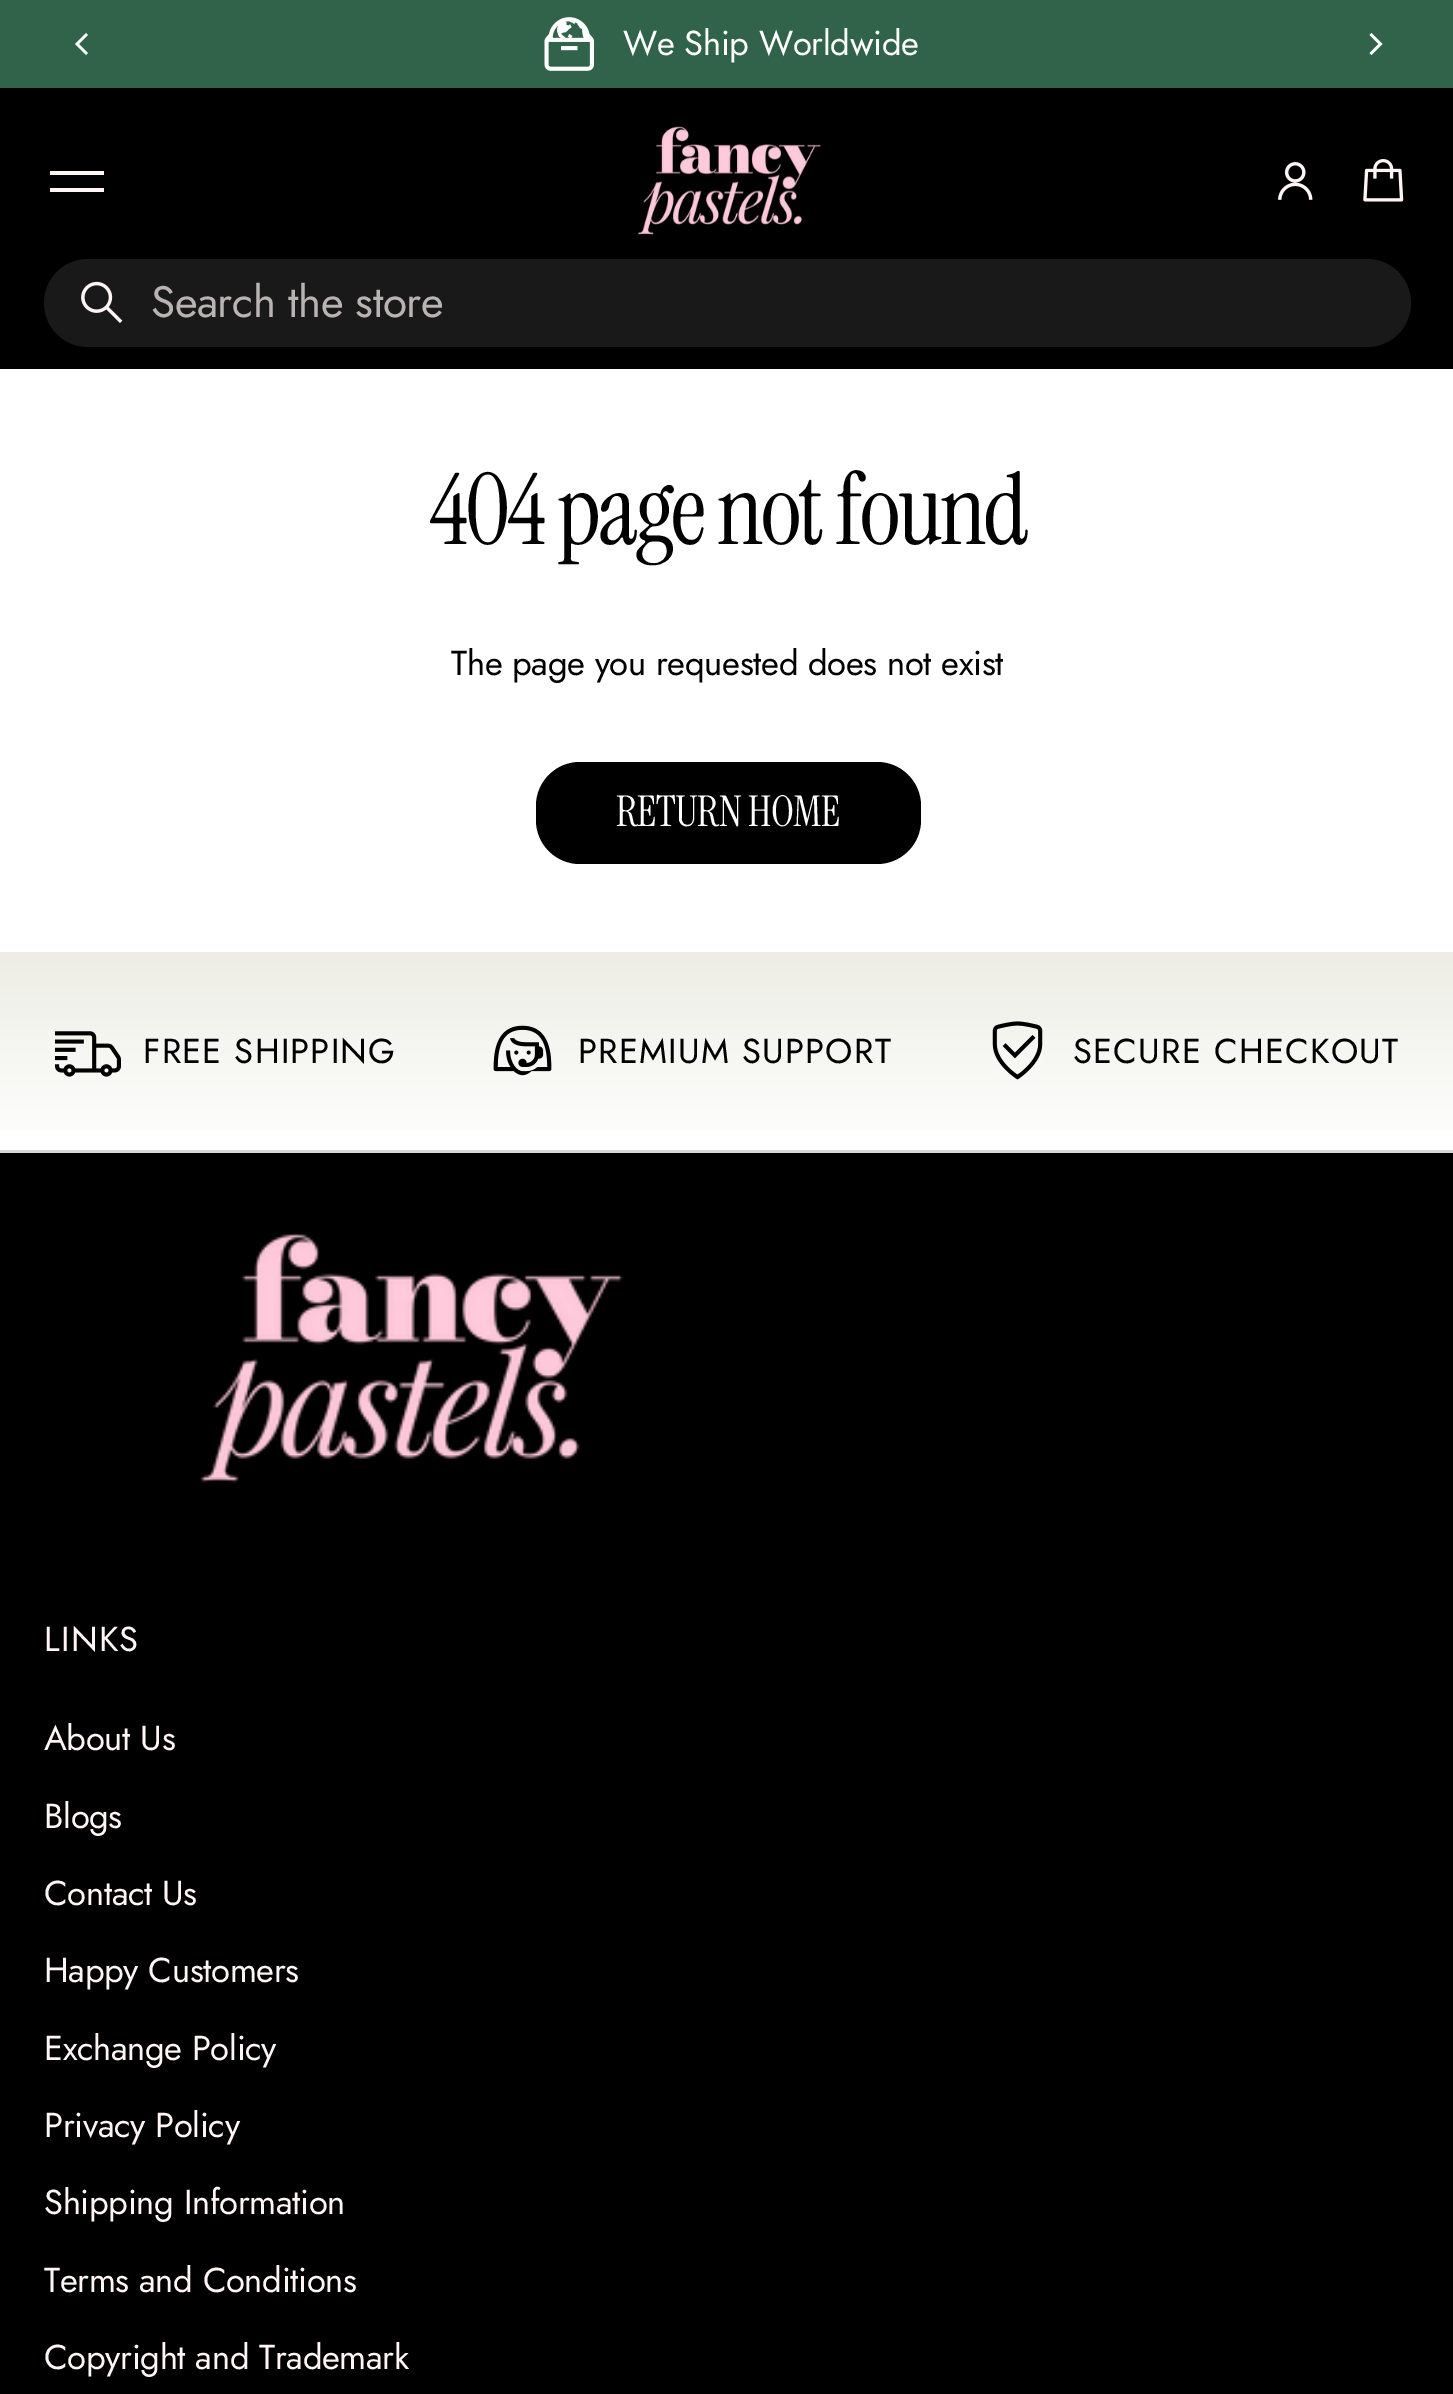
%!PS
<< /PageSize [1453 2394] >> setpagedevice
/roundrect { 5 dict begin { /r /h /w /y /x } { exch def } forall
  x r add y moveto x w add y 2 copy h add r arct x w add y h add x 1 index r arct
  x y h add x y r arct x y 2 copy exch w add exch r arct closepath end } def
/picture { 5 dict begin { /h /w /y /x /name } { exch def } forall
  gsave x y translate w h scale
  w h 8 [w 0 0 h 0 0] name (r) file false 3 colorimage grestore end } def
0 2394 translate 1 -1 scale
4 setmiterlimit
1 setgray
0 0 1453 2394 rectfill
0.188 0.388 0.29 setrgbcolor
0 0 1453 88 rectfill
1 setgray
newpath 88 53 moveto 86 55 lineto 75 44 lineto 86 33 lineto 88 35 lineto 79 44 lineto closepath fill
(img1.rgb) 544 17 50 54 picture
/Jost-Regular [34.6 0 0 -34.6 0 0] selectfont
623 55 moveto -0.35 0 (We Ship Worldwide) ashow
newpath 1369.5 53 moveto 1371.5 55 lineto 1382.5 44 lineto 1371.5 33 lineto 1369.5 35 lineto 1378.5 44 lineto closepath fill
0 setgray
0 88 1453 281 rectfill
1 0.961 0.961 setrgbcolor
newpath 50 171 moveto 50 175 lineto 104 175 lineto 104 171 lineto closepath 50 188 moveto 50 192 lineto 104 192 lineto 104 188 lineto closepath fill
(img2.rgb) 638 126 183 109 picture
(img3.rgb) 1278 162 35 38 picture
(img4.rgb) 1363 159 41 43 picture
0.102 0.098 0.098 setrgbcolor
44 259 1367 88 44 roundrect fill
(img5.rgb) 81 281 42 42 picture
/Jost-Regular [44 0 0 -44 0 0] selectfont
0.729 0.702 0.702 setrgbcolor
151 317 moveto -0.5 0 (Search the store) ashow
/InstrumentSerif-Regular [99 0 0 -99 0 0] selectfont
0 setgray
429 544 moveto -3 0 (404 page not found) ashow
/Jost-Regular [34.6 0 0 -34.6 0 0] selectfont
451 675 moveto -0.35 0 (The page you requested does not exist) ashow
536 762 385 102 44 roundrect fill
/InstrumentSerif-Regular [42.5 0 0 -42.5 0 0] selectfont
1 setgray
616 826 moveto -0.5 0 (RETURN HOME) ashow
gsave newpath 0 952 moveto 1453 952 lineto 1453 1131 lineto 0 1131 lineto closepath clip newpath
<< /ShadingType 2 /ColorSpace /DeviceRGB /Coords [727 951 727 1150] /Extend [true true] /Function << /FunctionType 3 /Domain [0 1] /Functions [<< /FunctionType 2 /Domain [0 1] /C0 [0.929 0.929 0.898] /C1 [0.929 0.929 0.898] /N 1 >> << /FunctionType 2 /Domain [0 1] /C0 [0.929 0.929 0.898] /C1 [1 1 1] /N 1 >>] /Bounds [0.02] /Encode [0 1 0 1] >> >> shfill grestore
0.843 setgray
0 1150 1453 3 rectfill
(img6.rgb) 55 1031 66 46 picture
/Jost-Regular [34.6 0 0 -34.6 0 0] selectfont
0 setgray
143 1063 moveto 1.25 0 (FREE SHIPPING) ashow
(img7.rgb) 493 1025 59 51 picture
578 1063 moveto 1.25 0 (PREMIUM SUPPORT) ashow
(img8.rgb) 992 1021 51 59 picture
1073 1063 moveto 1.25 0 (SECURE CHECKOUT) ashow
0 1153 1453 1241 rectfill
(img9.rgb) 200 1232 423 251 picture
1 0.961 0.961 setrgbcolor
44 1651 moveto 1.25 0 (LINKS) ashow
44 1750 moveto -0.35 0 (About Us) ashow
44 1828 moveto -0.35 0 (Blogs) ashow
44 1905 moveto -0.35 0 (Contact Us) ashow
44 1982 moveto -0.35 0 (Happy Customers) ashow
44 2060 moveto -0.35 0 (Exchange Policy) ashow
44 2137 moveto -0.35 0 (Privacy Policy) ashow
44 2214 moveto -0.35 0 (Shipping Information) ashow
44 2292 moveto -0.35 0 (Terms and Conditions) ashow
44 2369 moveto -0.35 0 (Copyright and Trademark) ashow
showpage
